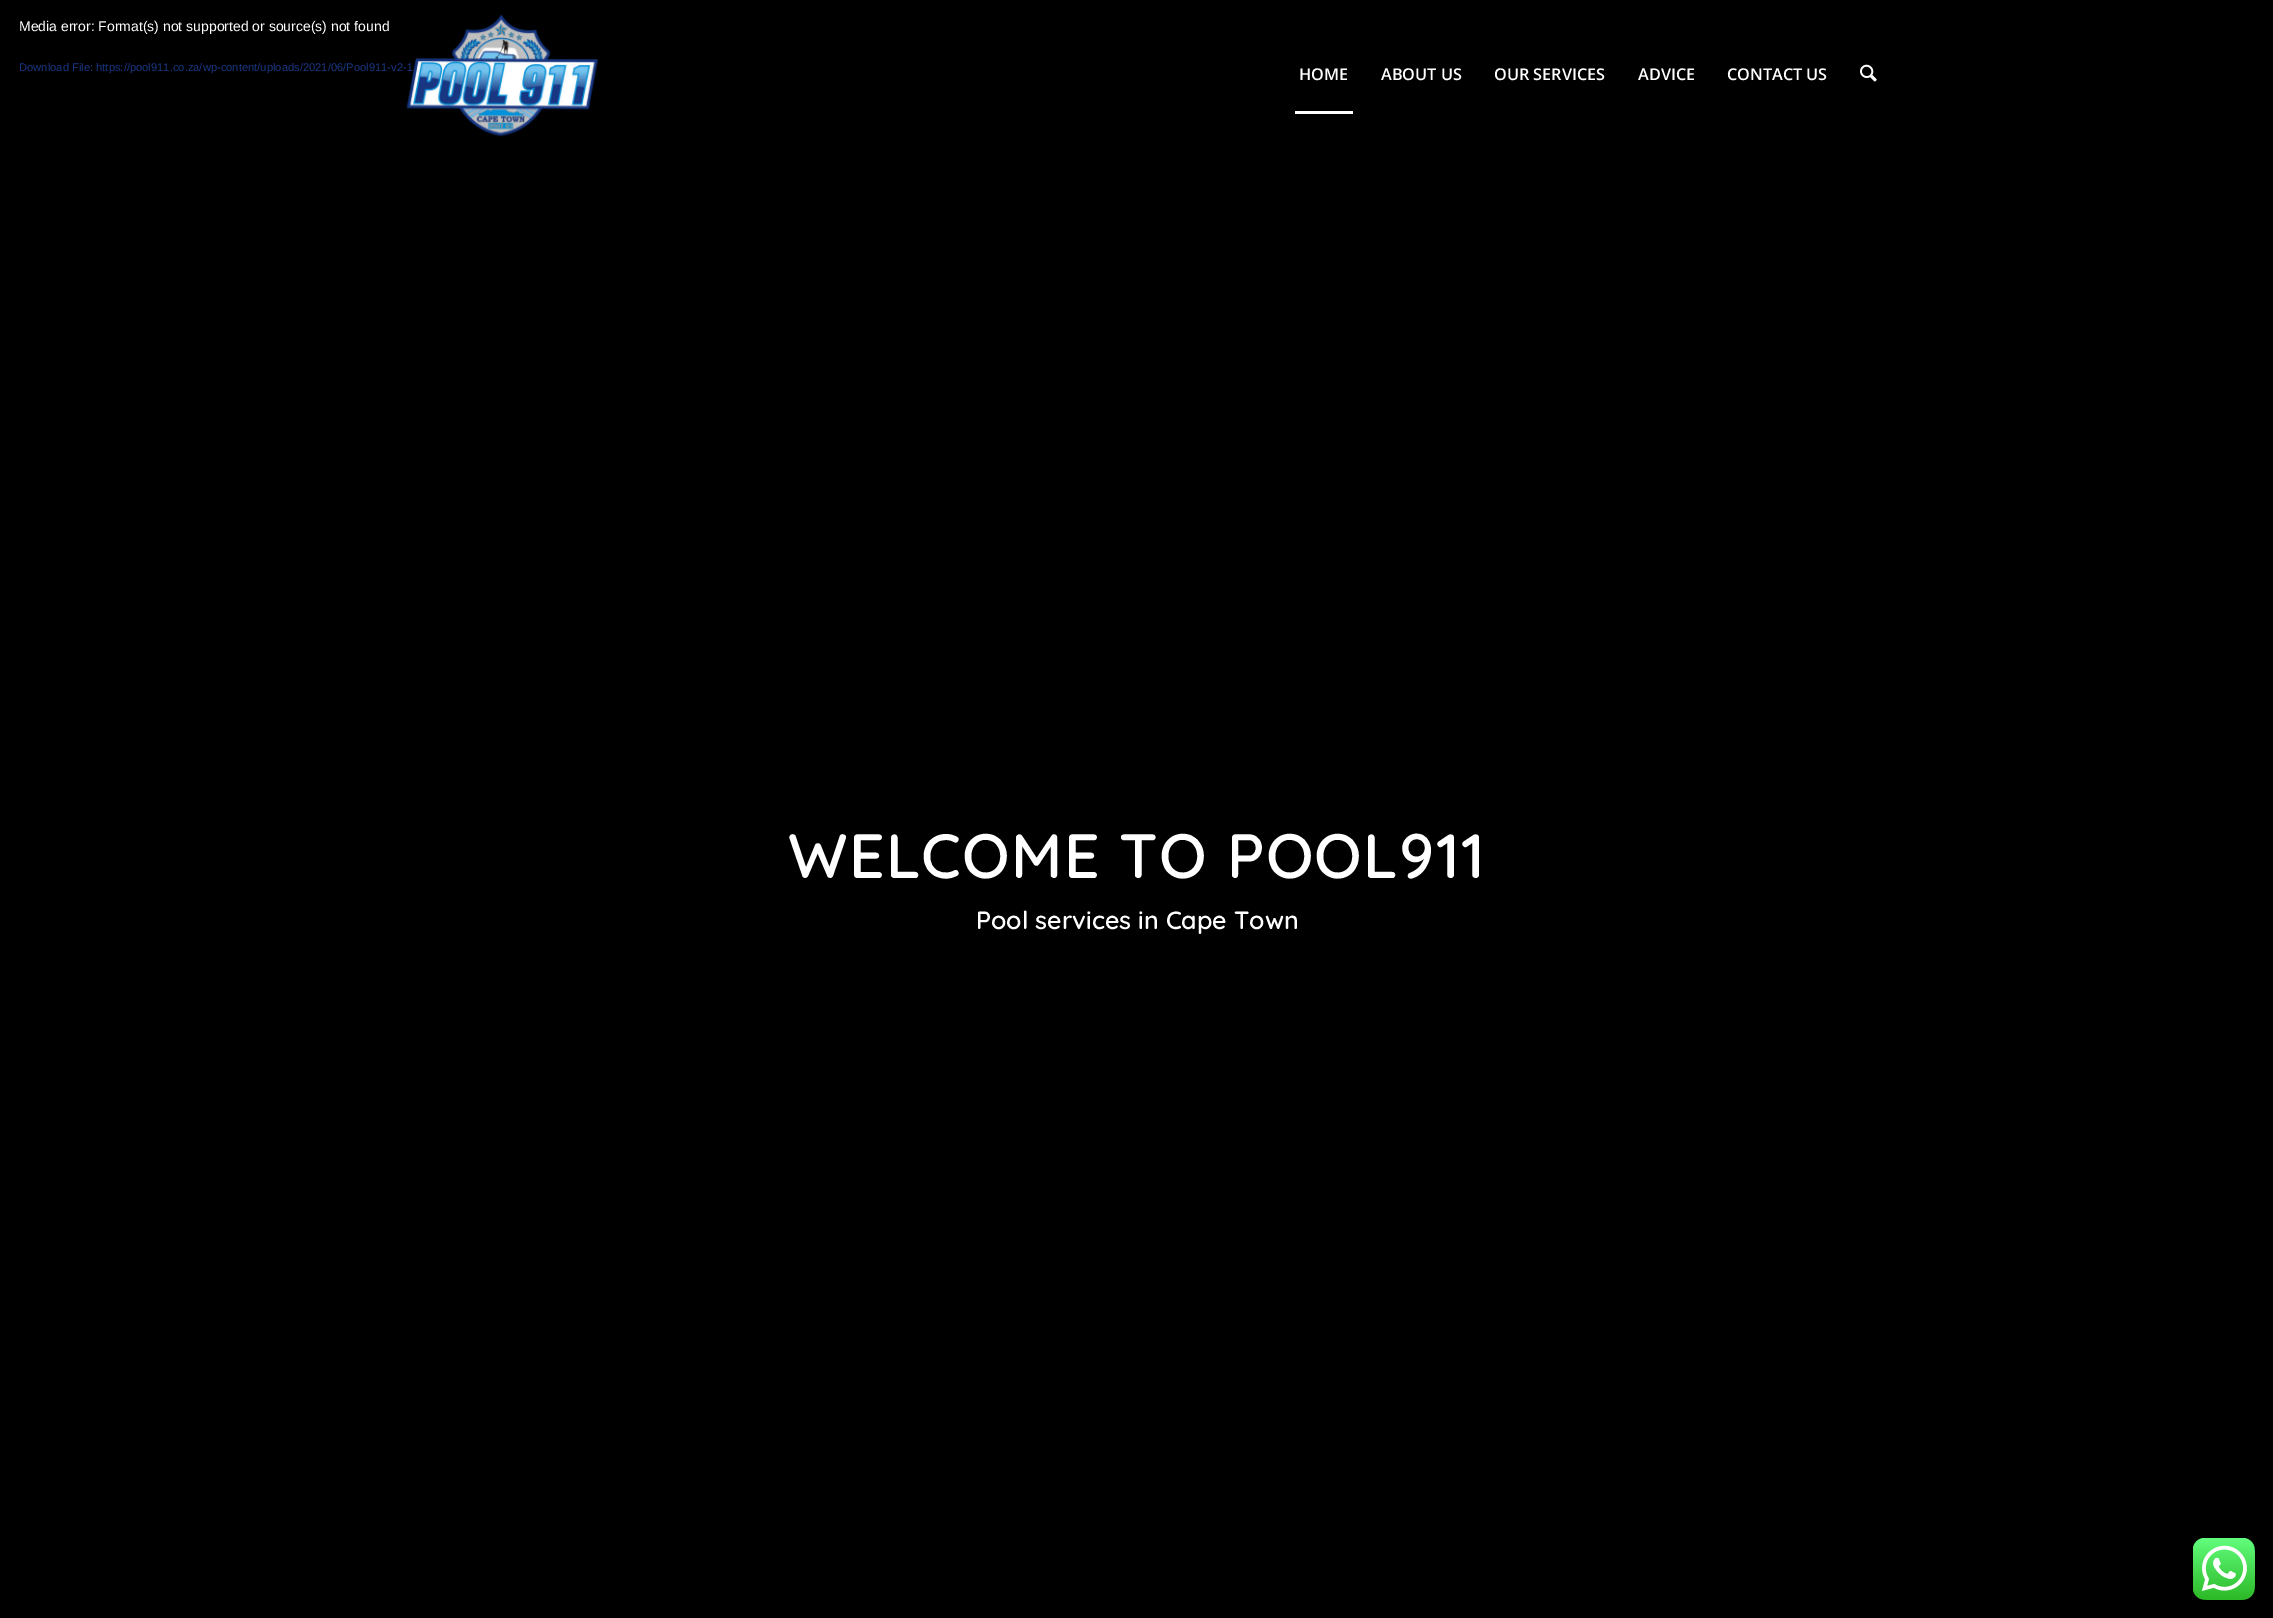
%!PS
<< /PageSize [2273 1618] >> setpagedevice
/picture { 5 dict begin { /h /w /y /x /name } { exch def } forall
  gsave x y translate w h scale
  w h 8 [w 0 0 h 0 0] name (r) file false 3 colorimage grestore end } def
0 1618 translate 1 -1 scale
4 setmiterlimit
0 setgray
0 0 2273 1618 rectfill
/LiberationSans-Regular [14 0 0 -14 0 0] selectfont
1 setgray
19 31 moveto (Media error: Format\(s\) not supported or source\(s\) not found) show
/LiberationSans-Regular [11.2 0 0 -11.2 0 0] selectfont
0.098 0.216 0.51 setrgbcolor
19 71 moveto (Download File: https://pool911.co.za/wp-content/uploads/2021/06/Pool911-v2-1) show
/Quicksand-SemiBold [62.5 0 0 -62.5 0 0] selectfont
1 setgray
788 878 moveto 1.25 0 (WELCOME TO POOL911) ashow
/Quicksand-SemiBold [25 0 0 -25 0 0] selectfont
976 929 moveto (Pool services in Cape Town) show
(img1.rgb) 406 14 193 123 picture
/OpenSans-SemiBold [16.25 0 0 -16.25 0 0] selectfont
1299 80 moveto (HOME) show
1295 111 58 3 rectfill
1381 80 moveto (ABOUT US) show
1494 80 moveto (OUR SERVICES) show
1638 80 moveto (ADVICE) show
1727 80 moveto (CONTACT US) show
(img2.rgb) 1860 64 17 18 picture
(img3.rgb) 2193 1538 62 62 picture
showpage
